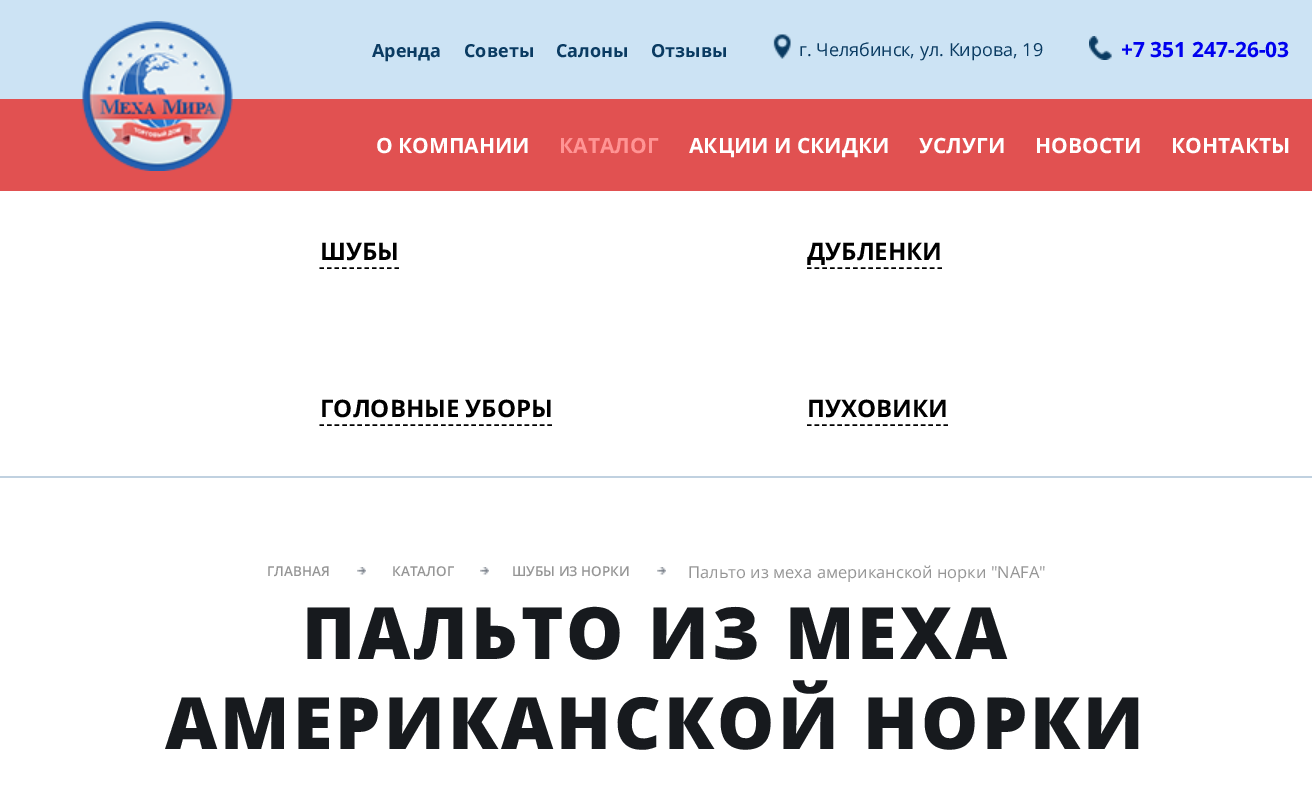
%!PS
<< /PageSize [1312 788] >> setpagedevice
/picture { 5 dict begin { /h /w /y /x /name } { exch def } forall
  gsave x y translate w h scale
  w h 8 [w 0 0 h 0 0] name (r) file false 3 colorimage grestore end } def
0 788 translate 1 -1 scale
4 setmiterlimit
1 setgray
0 0 1312 788 rectfill
0.8 0.89 0.957 setrgbcolor
0 0 1312 99 rectfill
/OpenSans-Bold [18 0 0 -18 0 0] selectfont
0.039 0.231 0.384 setrgbcolor
372 57 moveto (Аренда) show
464 57 moveto (Советы) show
556 57 moveto (Салоны) show
651 57 moveto (Отзывы) show
(img1.rgb) 773 34 18 25 picture
/OpenSans-Regular [18 0 0 -18 0 0] selectfont
799 56 moveto (г. Челябинск, ул. Кирова, 19) show
(img2.rgb) 1089 36 23 24 picture
/OpenSans-Bold [21 0 0 -21 0 0] selectfont
0 0 0.933 setrgbcolor
1121 57 moveto (+7 351 247-26-03) show
0.882 0.318 0.318 setrgbcolor
0 99 1312 92 rectfill
(img3.rgb) 82 21 151 150 picture
1 setgray
376 153 moveto (О КОМПАНИИ) show
1 0.58 0.58 setrgbcolor
559 153 moveto (КАТАЛОГ) show
1 setgray
689 153 moveto (АКЦИИ И СКИДКИ) show
919 153 moveto (УСЛУГИ) show
1035 153 moveto (НОВОСТИ) show
1171 153 moveto (КОНТАКТЫ) show
0.753 0.82 0.878 setrgbcolor
0 476 1312 2 rectfill
0 setgray
1.5 setlinewidth
[4.5 3] 0 setdash
newpath 319.5 268 moveto 399 268 lineto stroke
/OpenSans-Bold [24 0 0 -24 0 0] selectfont
320 260 moveto (ШУБЫ) show
[4.5 3.18] 0 setdash
newpath 807 268 moveto 942 268 lineto stroke
807 260 moveto (ДУБЛЕНКИ) show
[4.5 3.1] 0 setdash
newpath 319.5 425 moveto 552 425 lineto stroke
320 417 moveto (ГОЛОВНЫЕ УБОРЫ) show
[4.5 3.09] 0 setdash
newpath 807 425 moveto 948 425 lineto stroke
807 417 moveto (ПУХОВИКИ) show
/OpenSans-SemiBold [13.5 0 0 -13.5 0 0] selectfont
0.584 setgray
267 576 moveto (ГЛАВНАЯ) show
(img4.rgb) 357 567 9 8 picture
392 576 moveto (КАТАЛОГ) show
(img4.rgb) 480 567 9 8 picture
512 576 moveto (ШУБЫ ИЗ НОРКИ) show
(img5.rgb) 657 567 9 8 picture
/OpenSans-Regular [16.5 0 0 -16.5 0 0] selectfont
688 578 moveto (Пальто из меха американской норки "NAFA") show
/OpenSans-ExtraBold [72 0 0 -72 0 0] selectfont
0.09 0.102 0.118 setrgbcolor
302 659 moveto 3 0 (ПАЛЬТО ИЗ МЕХА) ashow
165 749 moveto 3 0 (АМЕРИКАНСКОЙ НОРКИ) ashow
showpage
